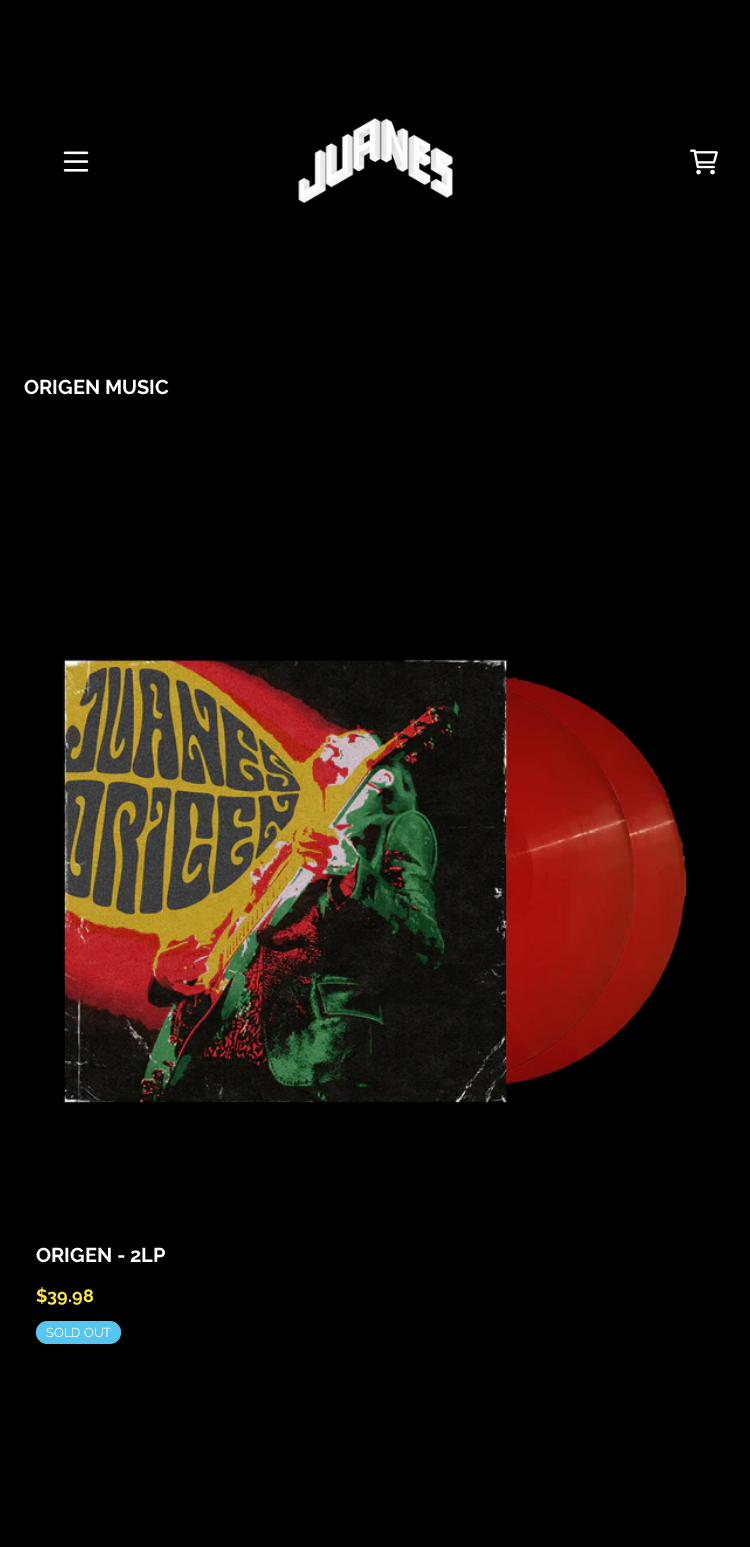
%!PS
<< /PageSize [750 1547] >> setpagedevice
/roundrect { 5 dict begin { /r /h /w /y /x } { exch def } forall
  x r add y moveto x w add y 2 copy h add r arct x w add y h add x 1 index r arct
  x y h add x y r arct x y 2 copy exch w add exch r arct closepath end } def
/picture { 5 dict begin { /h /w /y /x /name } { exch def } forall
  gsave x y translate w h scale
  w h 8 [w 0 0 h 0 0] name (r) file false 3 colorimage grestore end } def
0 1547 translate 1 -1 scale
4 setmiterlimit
0 setgray
0 0 750 1547 rectfill
(img1.rgb) 63 151 26 21 picture
(img2.rgb) 298 118 155 86 picture
(img3.rgb) 690 149 28 26 picture
/Raleway-Bold [20 0 0 -20 0 0] selectfont
1 setgray
24 394 moveto (ORIGEN MUSIC) show
(img4.rgb) 63 659 624 444 picture
36 1262 moveto (ORIGEN - 2LP) show
/Raleway-Bold [18 0 0 -18 0 0] selectfont
0.992 0.918 0.247 setrgbcolor
36 1302 moveto ($39.98) show
0.337 0.773 0.941 setrgbcolor
36 1321 85 23 11.5 roundrect fill
/Raleway-Regular [13 0 0 -13 0 0] selectfont
1 setgray
46 1337 moveto (SOLD OUT) show
showpage
